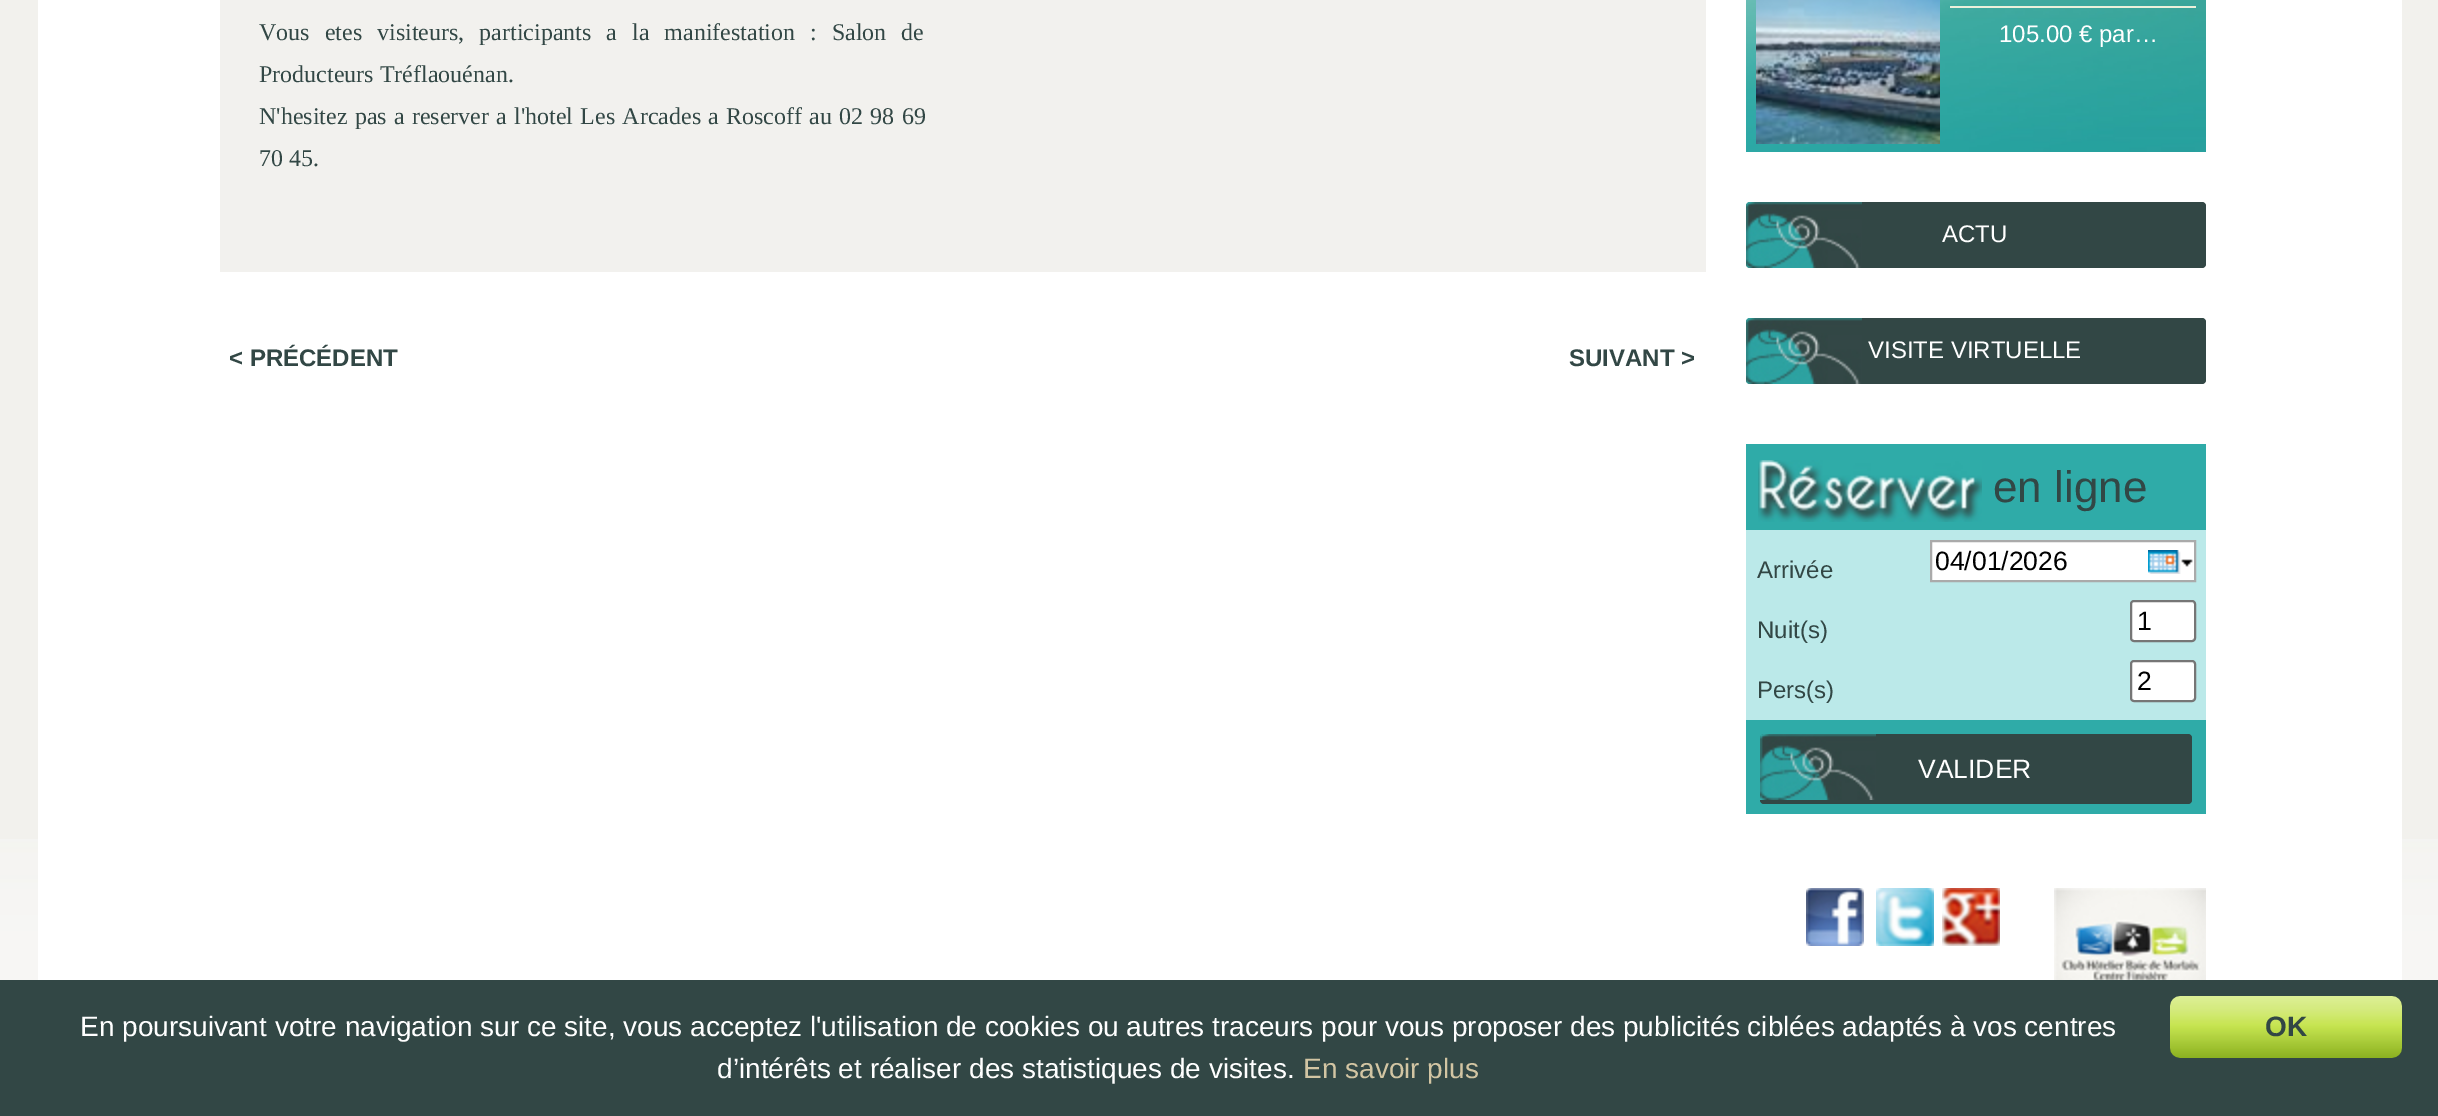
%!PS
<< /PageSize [2438 1116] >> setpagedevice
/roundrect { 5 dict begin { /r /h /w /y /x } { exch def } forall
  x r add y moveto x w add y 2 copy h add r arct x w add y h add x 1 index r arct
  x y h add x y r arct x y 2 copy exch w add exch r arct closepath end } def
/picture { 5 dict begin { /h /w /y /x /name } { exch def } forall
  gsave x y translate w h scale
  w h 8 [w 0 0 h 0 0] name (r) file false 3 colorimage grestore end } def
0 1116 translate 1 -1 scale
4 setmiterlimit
0.949 0.945 0.929 setrgbcolor
0 0 2438 1116 rectfill
(img1.rgb) 0 839 2438 141 picture
1 setgray
38 0 2364 980 rectfill
0.949 0.945 0.933 setrgbcolor
220 0 1486 272 rectfill
/LiberationSerif-Regular [24 0 0 -24 0 0] selectfont
0.196 0.278 0.271 setrgbcolor
259 40 moveto 9 0 32 (Vous etes visiteurs, participants a la manifestation : Salon de) widthshow
259 82 moveto (Producteurs Tréflaouénan.) show
259 124 moveto 1.25 0 32 (N'hesitez pas a reserver a l'hotel Les Arcades a Roscoff au 02 98 69) widthshow
259 166 moveto (70 45.) show
/LiberationSans-Bold [24 0 0 -24 0 0] selectfont
229 366 moveto (< PRÉCÉDENT) show
1569 366 moveto (SUIVANT >) show
(img2.rgb) 1746 0 460 152 picture
(img3.rgb) 1756 0 184 144 picture
0.922 0.941 0.859 setrgbcolor
1950 6 246 2 rectfill
/LiberationSans-Regular [24 0 0 -24 0 0] selectfont
1 setgray
1999 42 moveto (105.00 € par…) show
0.196 0.278 0.271 setrgbcolor
1746 202 460 66 4 roundrect fill
(img4.rgb) 1746 202 116 66 picture
1 setgray
1942 242 moveto (ACTU) show
0.196 0.278 0.271 setrgbcolor
1746 318 460 66 4 roundrect fill
(img4.rgb) 1746 318 116 66 picture
1 setgray
1868 358 moveto (VISITE VIRTUELLE) show
0.184 0.671 0.659 setrgbcolor
1746 444 460 86 rectfill
(img5.rgb) 1758 460 224 62 picture
/LiberationSans-Regular [44 0 0 -44 0 0] selectfont
0.196 0.278 0.271 setrgbcolor
1993 502 moveto (en ligne) show
0.733 0.914 0.914 setrgbcolor
1746 530 460 190 rectfill
/LiberationSans-Regular [24 0 0 -24 0 0] selectfont
0.196 0.278 0.271 setrgbcolor
1757 578 moveto (Arrivée) show
1 setgray
1932 542 262 38 rectfill
(img6.rgb) 2148 550 45 24 picture
0.667 setgray
2 setlinewidth
1931 541 264 40 rectstroke
/LiberationSans-Regular [26.5 0 0 -26.5 0 0] selectfont
0 setgray
1935 570 moveto (04/01/2026) show
/LiberationSans-Regular [24 0 0 -24 0 0] selectfont
0.196 0.278 0.271 setrgbcolor
1757 638 moveto (Nuit\(s\)) show
1 setgray
2131 601 64 40 3 roundrect gsave fill grestore
0.463 setgray
stroke
/LiberationSans-Regular [26.5 0 0 -26.5 0 0] selectfont
0 setgray
2137 630 moveto (1) show
/LiberationSans-Regular [24 0 0 -24 0 0] selectfont
0.196 0.278 0.271 setrgbcolor
1757 698 moveto (Pers\(s\)) show
1 setgray
2131 661 64 40 3 roundrect gsave fill grestore
0.463 setgray
stroke
/LiberationSans-Regular [26.5 0 0 -26.5 0 0] selectfont
0 setgray
2137 690 moveto (2) show
0.184 0.671 0.659 setrgbcolor
1746 720 460 94 rectfill
0.196 0.278 0.271 setrgbcolor
1760 734 432 70 4 roundrect fill
(img7.rgb) 1760 734 116 66 picture
1 setgray
1918 778 moveto (VALIDER) show
(img8.rgb) 1806 888 58 58 picture
(img9.rgb) 1876 888 58 58 picture
(img10.rgb) 1942 888 58 58 picture
(img11.rgb) 2054 888 152 92 picture
0.196 0.278 0.271 setrgbcolor
0 980 2438 136 rectfill
/LiberationSans-Regular [28 0 0 -28 0 0] selectfont
1 setgray
80 1036 moveto (En poursuivant votre navigation sur ce site, vous acceptez l'utilisation de cookies ou autres traceurs pour vous proposer des publicités ciblées adaptés à vos centres) show
717 1078 moveto (d’intérêts et réaliser des statistiques de visites.) show
0.824 0.773 0.639 setrgbcolor
1303 1078 moveto (En savoir plus) show
(img12.rgb) 2170 996 232 62 picture
/LiberationSans-Bold [28 0 0 -28 0 0] selectfont
0.196 0.278 0.271 setrgbcolor
2265 1036 moveto (OK) show
showpage
